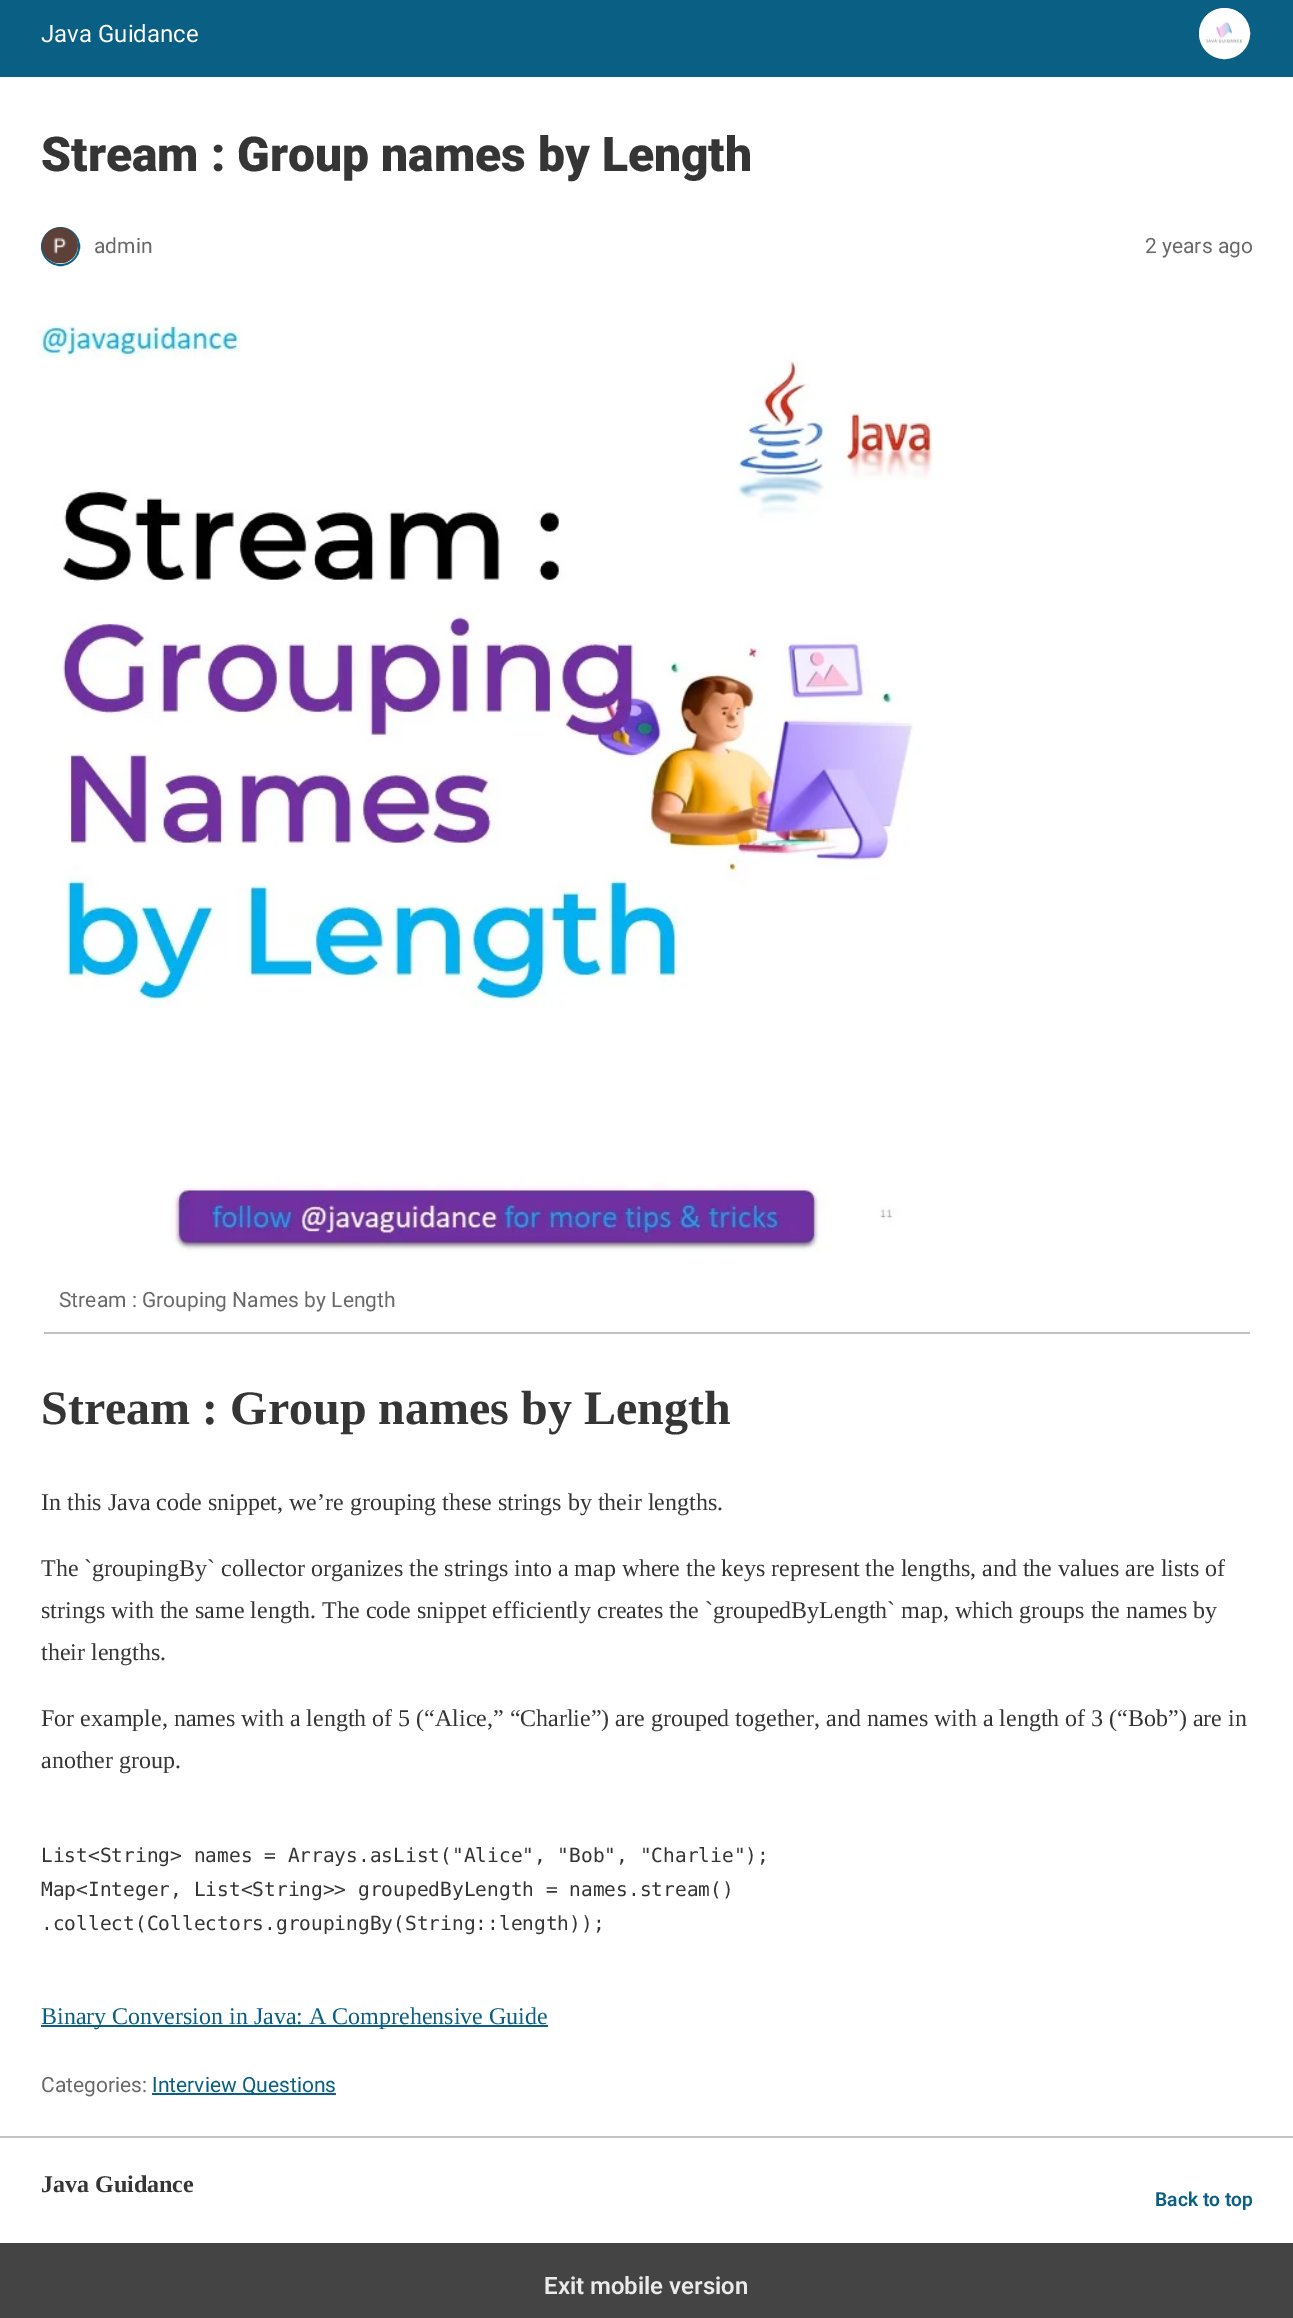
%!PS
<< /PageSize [1293 2318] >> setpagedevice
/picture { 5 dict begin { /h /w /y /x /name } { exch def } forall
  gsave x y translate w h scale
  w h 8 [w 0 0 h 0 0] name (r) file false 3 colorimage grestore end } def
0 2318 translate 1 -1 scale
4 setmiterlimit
1 setgray
0 0 1293 2318 rectfill
0.039 0.373 0.522 setrgbcolor
0 0 1293 77 rectfill
/Roboto-Regular [24 0 0 -24 0 0] selectfont
1 setgray
41 42 moveto (Java Guidance) show
newpath 1224.5 33.5 24.5 0 360 arc closepath gsave fill grestore
2 setlinewidth
stroke
(img1.rgb) 1204 9 40 35 picture
/Roboto-Black [48 0 0 -48 0 0] selectfont
0.208 setgray
41 171 moveto (Stream : Group names by Length) show
0.039 0.373 0.522 setrgbcolor
newpath 60.5 246.5 18.5 0 360 arc closepath stroke
(img2.rgb) 42 227 36 37 picture
/Roboto-Regular [21 0 0 -21 0 0] selectfont
0.412 setgray
94 253 moveto (admin) show
1145 253 moveto (2 years ago) show
(img3.rgb) 36 323 899 929 picture
0.761 setgray
44 1332 1206 2 rectfill
0.412 setgray
59 1307 moveto (Stream : Grouping Names by Length) show
/LiberationSerif-Bold [48 0 0 -48 0 0] selectfont
0.208 setgray
41 1424 moveto (Stream : Group names by Length) show
/LiberationSerif-Regular [24 0 0 -24 0 0] selectfont
41 1510 moveto (In this Java code snippet, we’re grouping these strings by their lengths.) show
41 1576 moveto (The `groupingBy` collector organizes the strings into a map where the keys represent the lengths, and the values are lists of) show
41 1618 moveto (strings with the same length. The code snippet efficiently creates the `groupedByLength` map, which groups the names by) show
41 1660 moveto (their lengths.) show
41 1726 moveto (For example, names with a length of 5 \(“Alice,” “Charlie”\) are grouped together, and names with a length of 3 \(“Bob”\) are in) show
41 1768 moveto (another group.) show
/DejaVuSansMono-Regular [19.5 0 0 -19.5 0 0] selectfont
41 1862 moveto (List<String> names = Arrays.asList\("Alice", "Bob", "Charlie"\);) show
41 1896 moveto (Map<Integer, List<String>> groupedByLength = names.stream\(\)) show
41 1930 moveto (.collect\(Collectors.groupingBy\(String::length\)\);) show
0.039 0.373 0.522 setrgbcolor
41 2025 507 2 rectfill
/LiberationSerif-Regular [24 0 0 -24 0 0] selectfont
41 2024 moveto (Binary Conversion in Java: A Comprehensive Guide) show
/Roboto-Regular [21 0 0 -21 0 0] selectfont
0.412 setgray
41 2092 moveto (Categories:) show
0.039 0.373 0.522 setrgbcolor
152 2093 184 2 rectfill
152 2092 moveto (Interview Questions) show
0.761 setgray
0 2136 1293 2 rectfill
/LiberationSerif-Bold [24 0 0 -24 0 0] selectfont
0.208 setgray
41 2192 moveto (Java Guidance) show
/Roboto-SemiBold [19.25 0 0 -19.25 0 0] selectfont
0.039 0.373 0.522 setrgbcolor
1155 2206 moveto (Back to top) show
0.267 setgray
0 2243 1293 75 rectfill
/Roboto-SemiBold [24 0 0 -24 0 0] selectfont
0.918 setgray
544 2294 moveto (Exit mobile version) show
showpage
